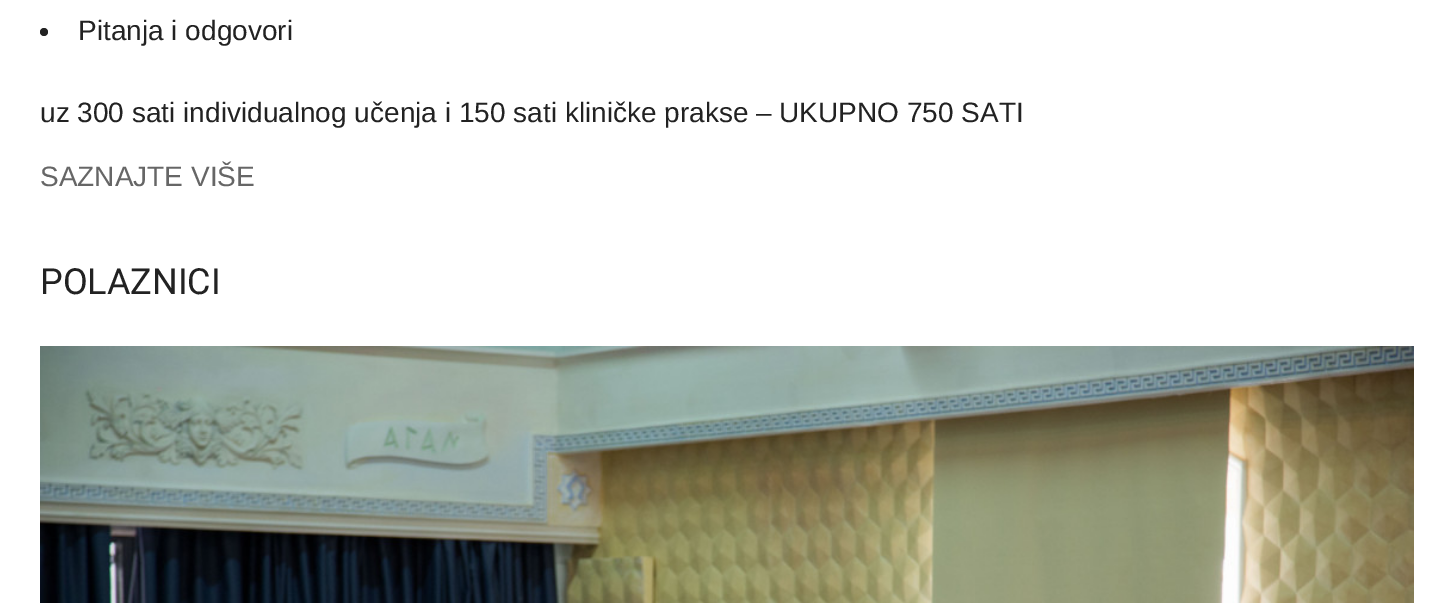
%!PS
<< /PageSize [1454 603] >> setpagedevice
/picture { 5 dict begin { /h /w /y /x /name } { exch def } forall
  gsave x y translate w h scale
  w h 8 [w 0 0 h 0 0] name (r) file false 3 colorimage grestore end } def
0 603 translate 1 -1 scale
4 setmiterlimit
1 setgray
0 0 1454 603 rectfill
0.133 setgray
newpath 44 32 4 0 360 arc closepath fill
/LiberationSans-Regular [28 0 0 -28 0 0] selectfont
78 40 moveto (Pitanja i odgovori) show
40 122 moveto (uz 300 sati individualnog učenja i 150 sati kliničke prakse – UKUPNO 750 SATI) show
0.4 setgray
40 186 moveto (SAZNAJTE VIŠE) show
/Roboto-Regular [36 0 0 -36 0 0] selectfont
0.133 setgray
40 294 moveto (POLAZNICI) show
(img1.rgb) 40 346 1374 257 picture
showpage
